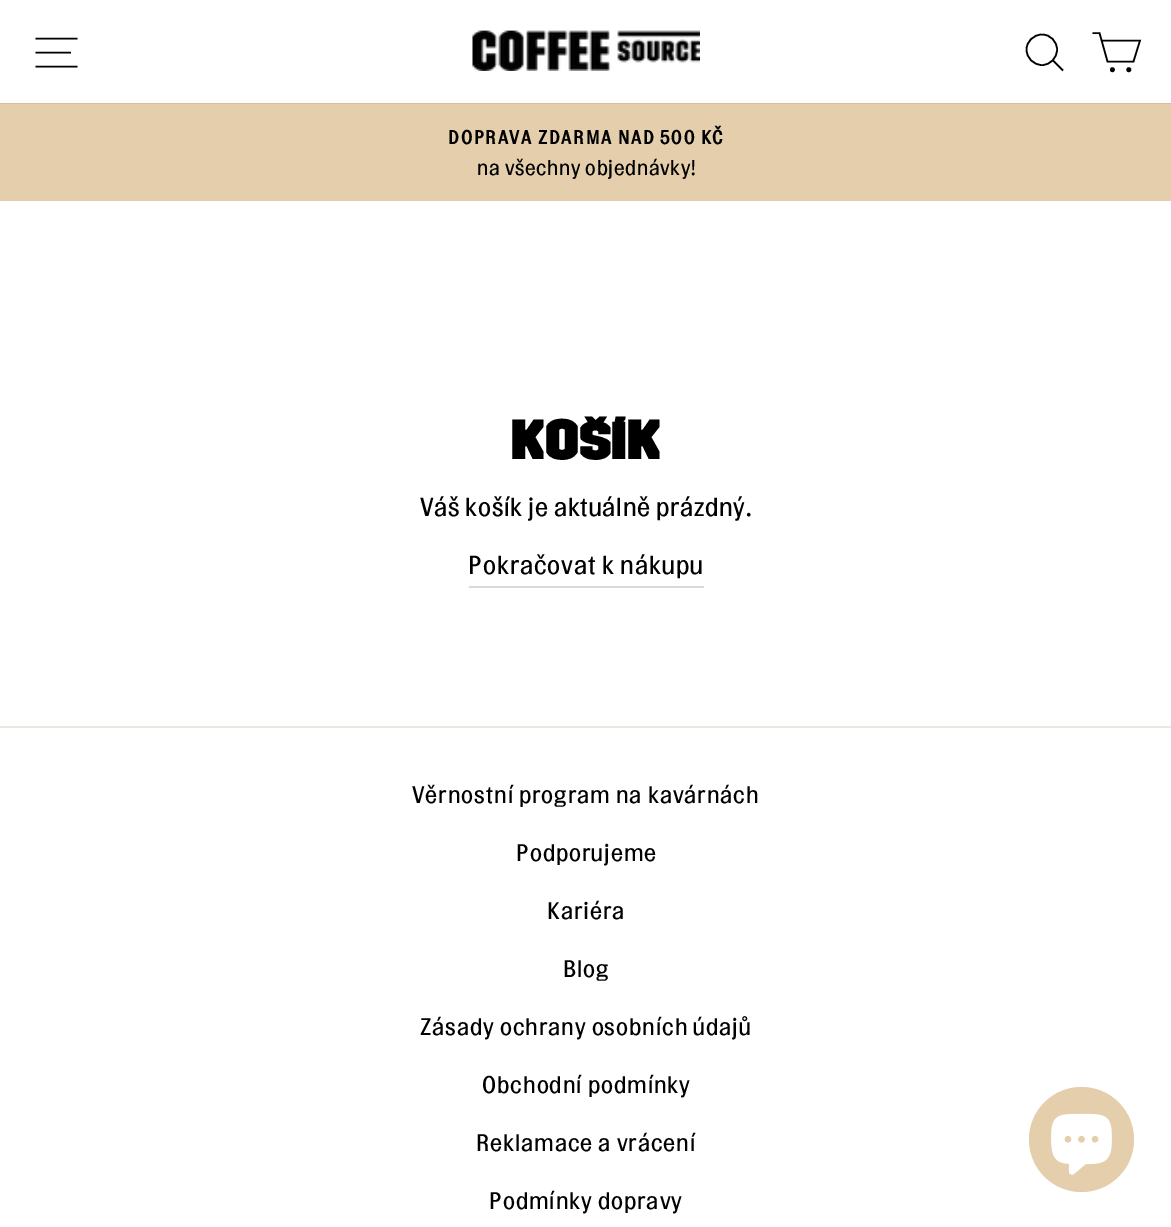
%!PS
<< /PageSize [1171 1227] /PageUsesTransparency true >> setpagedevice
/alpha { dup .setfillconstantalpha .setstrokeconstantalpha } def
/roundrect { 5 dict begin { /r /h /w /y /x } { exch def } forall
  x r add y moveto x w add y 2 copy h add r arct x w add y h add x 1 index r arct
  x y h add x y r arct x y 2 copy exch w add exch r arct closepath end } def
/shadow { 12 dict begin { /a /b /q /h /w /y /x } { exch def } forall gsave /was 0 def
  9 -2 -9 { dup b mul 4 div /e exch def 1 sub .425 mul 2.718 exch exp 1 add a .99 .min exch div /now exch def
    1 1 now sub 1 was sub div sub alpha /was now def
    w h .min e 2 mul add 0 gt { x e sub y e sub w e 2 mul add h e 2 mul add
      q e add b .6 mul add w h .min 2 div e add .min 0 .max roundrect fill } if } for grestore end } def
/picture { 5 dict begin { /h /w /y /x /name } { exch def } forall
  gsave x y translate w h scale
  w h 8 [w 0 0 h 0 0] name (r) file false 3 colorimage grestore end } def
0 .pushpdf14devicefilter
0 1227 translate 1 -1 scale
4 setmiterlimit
1 setgray
0 0 1171 1227 rectfill
0.894 0.808 0.675 setrgbcolor
0 103 1171 98 rectfill
gsave
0 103 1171 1 rectclip
0 setgray
0 0 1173 103 0 1 0.2 shadow
grestore
0 setgray
1.6 setlinewidth
newpath 35.5 38.5 moveto 77.5 38.5 lineto 35.5 52.5 moveto 71 52.5 lineto 35.5 66.5 moveto 77.5 66.5 lineto stroke
(img1.rgb) 472 30 228 41 picture
newpath 1057 49.5 moveto 1057 58 1050.5 65 1042 65 curveto 1033.5 65 1026.5 58 1026.5 49.5 curveto 1026.5 41.5 1033.5 34.5 1042 34.5 curveto 1050.5 34.5 1057 41.5 1057 49.5 curveto closepath 1063 70.5 moveto 1053 60.5 lineto stroke
newpath 1101.5 40.5 moveto 1140 40.5 lineto 1133.5 61.5 lineto 1107.5 61.5 lineto 1099.5 33 lineto 1092.5 33 lineto stroke
newpath 1112.4 69.7 1.6 0 360 arc closepath gsave fill grestore
stroke
newpath 1128.8 69.7 1.6 0 360 arc closepath gsave fill grestore
stroke
/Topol-Bold [18.9 0 0 -18.9 0 0] selectfont
448 144 moveto 1.75 0 (DOPRAVA ZDARMA NAD 500 KČ) ashow
/Topol-Regular [21 0 0 -21 0 0] selectfont
477 175 moveto 0.65 0 (na všechny objednávky!) ashow
/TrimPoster-ExtraBold [56.5 0 0 -56.5 0 0] selectfont
511 459 moveto (KOŠÍK) show
/Topol-Regular [25.75 0 0 -25.75 0 0] selectfont
420 516 moveto 0.65 0 (Váš košík je aktuálně prázdný.) ashow
0.851 setgray
469 586 235 2 rectfill
0 setgray
468 574 moveto 0.9 0 (Pokračovat k nákupu) ashow
0.91 0.91 0.882 setrgbcolor
0 726 1171 2 rectfill
/Topol-Regular [23.75 0 0 -23.75 0 0] selectfont
0 setgray
412 803 moveto 0.9 0 (Věrnostní program na kavárnách) ashow
516 861 moveto 0.9 0 (Podporujeme) ashow
547 919 moveto 0.9 0 (Kariéra) ashow
563 977 moveto 0.9 0 (Blog) ashow
420 1035 moveto 0.9 0 (Zásady ochrany osobních údajů) ashow
482 1093 moveto 0.9 0 (Obchodní podmínky) ashow
476 1151 moveto 0.9 0 (Reklamace a vrácení) ashow
489 1209 moveto 0.9 0 (Podmínky dopravy) ashow
0.894 0.808 0.675 setrgbcolor
newpath 1081.5 1139.5 52.5 0 360 arc closepath fill
(img2.rgb) 1051 1113 61 62 picture
.poppdf14devicefilter showpage
